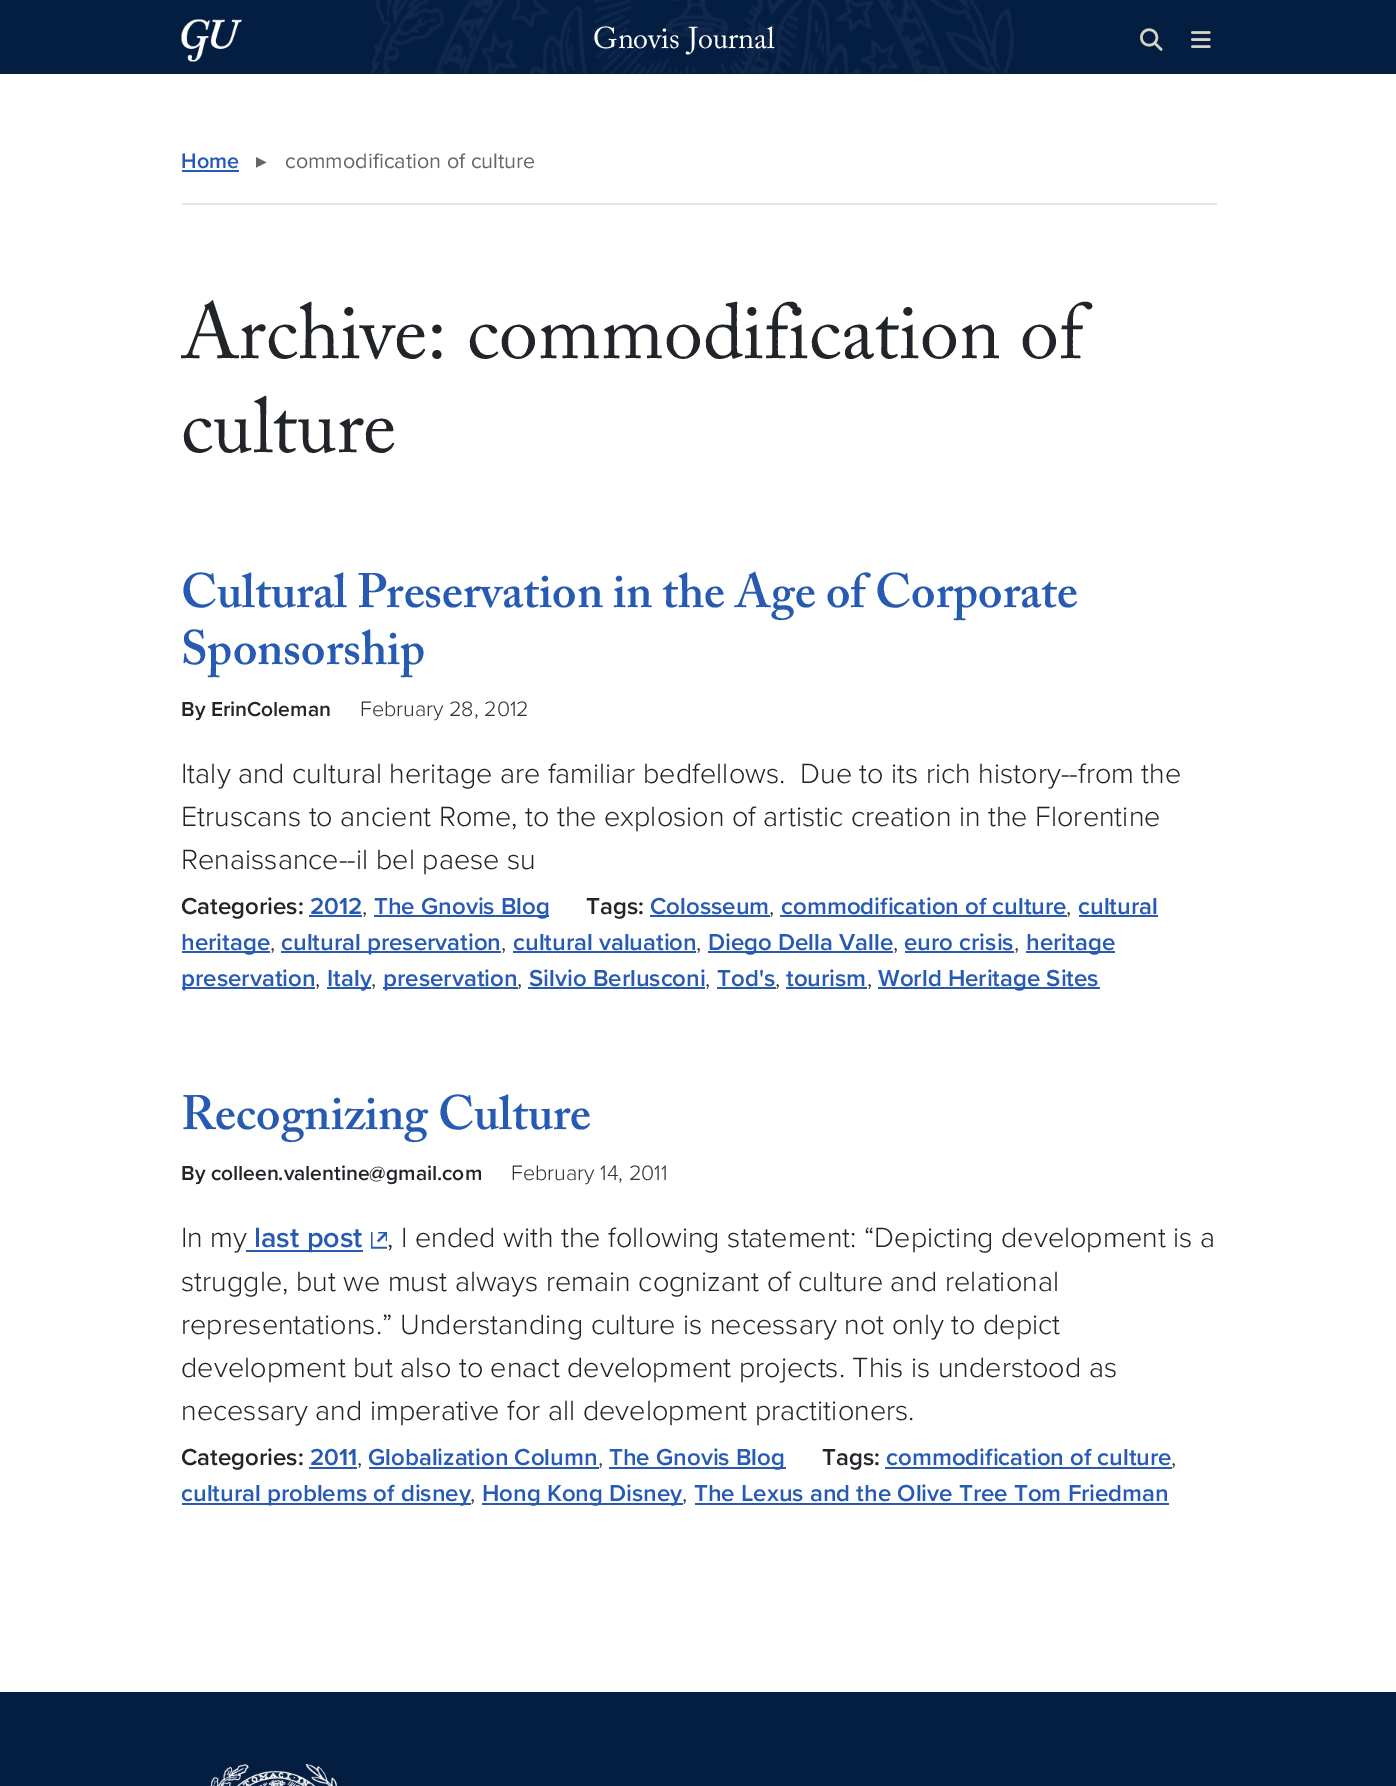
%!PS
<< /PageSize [1396 1786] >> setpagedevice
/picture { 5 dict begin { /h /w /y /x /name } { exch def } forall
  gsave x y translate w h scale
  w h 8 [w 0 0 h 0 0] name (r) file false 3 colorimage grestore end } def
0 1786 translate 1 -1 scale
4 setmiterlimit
1 setgray
0 0 1396 1786 rectfill
0.016 0.118 0.259 setrgbcolor
0 0 1396 74 rectfill
(img1.rgb) 371 0 643 74 picture
(img2.rgb) 181 19 61 43 picture
/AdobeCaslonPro-Regular [30 0 0 -30 0 0] selectfont
1 setgray
593 48 moveto (Gnovis Journal) show
(img3.rgb) 1140 28 23 23 picture
(img4.rgb) 1191 31 20 17 picture
0.894 setgray
182 203 1035 2 rectfill
/ProximaNova-SemiBold [21.6 0 0 -21.6 0 0] selectfont
0.149 0.353 0.702 setrgbcolor
181 168 moveto (Home) show
182 170 57 2 rectfill
/DejaVuSans-Regular [21.6 0 0 -21.6 0 0] selectfont
0.388 0.4 0.416 setrgbcolor
256 168 moveto (▸) show
/ProximaNova-Regular [21.6 0 0 -21.6 0 0] selectfont
285 168 moveto (commodification of culture) show
/AdobeCaslonPro-Regular [78 0 0 -78 0 0] selectfont
0.129 0.145 0.161 setrgbcolor
181 358 moveto (Archive: commodification of) show
181 452 moveto (culture) show
/AdobeCaslonPro-SemiBold [48 0 0 -48 0 0] selectfont
0.149 0.353 0.702 setrgbcolor
181 607 moveto (Cultural Preservation in the Age of Corporate) show
181 664 moveto (Sponsorship) show
/ProximaNova-SemiBold [21 0 0 -21 0 0] selectfont
0.129 0.145 0.161 setrgbcolor
181 716 moveto (By ErinColeman) show
/ProximaNova-Light [21.6 0 0 -21.6 0 0] selectfont
0.2 setgray
360 716 moveto (February 28, 2012) show
/ProximaNova-Light [28.8 0 0 -28.8 0 0] selectfont
0.129 0.145 0.161 setrgbcolor
181 783 moveto (Italy and cultural heritage are familiar bedfellows.  Due to its rich history--from the) show
181 826 moveto (Etruscans to ancient Rome, to the explosion of artistic creation in the Florentine) show
181 869 moveto (Renaissance--il bel paese su) show
gsave
182 498 1035 1110 rectclip
/ProximaNova-SemiBold [24 0 0 -24 0 0] selectfont
181 914 moveto (Categories:) show
grestore
/ProximaNova-SemiBold [24 0 0 -24 0 0] selectfont
0.149 0.353 0.702 setrgbcolor
310 914 moveto (2012) show
/ProximaNova-Light [24 0 0 -24 0 0] selectfont
0.129 0.145 0.161 setrgbcolor
362 914 moveto (,) show
0.149 0.353 0.702 setrgbcolor
309 915 53 2 rectfill
374 915 175 2 rectfill
/ProximaNova-SemiBold [24 0 0 -24 0 0] selectfont
374 914 moveto (The Gnovis Blog) show
0.129 0.145 0.161 setrgbcolor
586 914 moveto (Tags:) show
0.149 0.353 0.702 setrgbcolor
650 914 moveto (Colosseum) show
/ProximaNova-Light [24 0 0 -24 0 0] selectfont
0.129 0.145 0.161 setrgbcolor
769 914 moveto (,) show
0.149 0.353 0.702 setrgbcolor
650 915 120 2 rectfill
/ProximaNova-SemiBold [24 0 0 -24 0 0] selectfont
781 914 moveto (commodification of culture) show
/ProximaNova-Light [24 0 0 -24 0 0] selectfont
0.129 0.145 0.161 setrgbcolor
1066 914 moveto (,) show
0.149 0.353 0.702 setrgbcolor
780 915 287 2 rectfill
1079 915 79 2 rectfill
/ProximaNova-SemiBold [24 0 0 -24 0 0] selectfont
1078 914 moveto (cultural) show
182 951 88 2 rectfill
181 950 moveto (heritage) show
/ProximaNova-Light [24 0 0 -24 0 0] selectfont
0.129 0.145 0.161 setrgbcolor
270 950 moveto (,) show
0.149 0.353 0.702 setrgbcolor
281 951 220 2 rectfill
/ProximaNova-SemiBold [24 0 0 -24 0 0] selectfont
281 950 moveto (cultural preservation) show
/ProximaNova-Light [24 0 0 -24 0 0] selectfont
0.129 0.145 0.161 setrgbcolor
501 950 moveto (,) show
/ProximaNova-SemiBold [24 0 0 -24 0 0] selectfont
0.149 0.353 0.702 setrgbcolor
513 950 moveto (cultural valuation) show
/ProximaNova-Light [24 0 0 -24 0 0] selectfont
0.129 0.145 0.161 setrgbcolor
696 950 moveto (,) show
0.149 0.353 0.702 setrgbcolor
513 951 183 2 rectfill
708 951 185 2 rectfill
/ProximaNova-SemiBold [24 0 0 -24 0 0] selectfont
708 950 moveto (Diego Della Valle) show
/ProximaNova-Light [24 0 0 -24 0 0] selectfont
0.129 0.145 0.161 setrgbcolor
893 950 moveto (,) show
/ProximaNova-SemiBold [24 0 0 -24 0 0] selectfont
0.149 0.353 0.702 setrgbcolor
904 950 moveto (euro crisis) show
/ProximaNova-Light [24 0 0 -24 0 0] selectfont
0.129 0.145 0.161 setrgbcolor
1014 950 moveto (,) show
0.149 0.353 0.702 setrgbcolor
905 951 109 2 rectfill
1026 951 89 2 rectfill
/ProximaNova-SemiBold [24 0 0 -24 0 0] selectfont
1026 950 moveto (heritage) show
182 987 133 2 rectfill
181 986 moveto (preservation) show
/ProximaNova-Light [24 0 0 -24 0 0] selectfont
0.129 0.145 0.161 setrgbcolor
315 986 moveto (,) show
0.149 0.353 0.702 setrgbcolor
327 987 44 2 rectfill
/ProximaNova-SemiBold [24 0 0 -24 0 0] selectfont
327 986 moveto (Italy) show
/ProximaNova-Light [24 0 0 -24 0 0] selectfont
0.129 0.145 0.161 setrgbcolor
371 986 moveto (,) show
0.149 0.353 0.702 setrgbcolor
383 987 135 2 rectfill
/ProximaNova-SemiBold [24 0 0 -24 0 0] selectfont
383 986 moveto (preservation) show
/ProximaNova-Light [24 0 0 -24 0 0] selectfont
0.129 0.145 0.161 setrgbcolor
517 986 moveto (,) show
/ProximaNova-SemiBold [24 0 0 -24 0 0] selectfont
0.149 0.353 0.702 setrgbcolor
529 986 moveto (Silvio Berlusconi) show
/ProximaNova-Light [24 0 0 -24 0 0] selectfont
0.129 0.145 0.161 setrgbcolor
705 986 moveto (,) show
0.149 0.353 0.702 setrgbcolor
528 987 177 2 rectfill
/ProximaNova-SemiBold [24 0 0 -24 0 0] selectfont
717 986 moveto (Tod's) show
/ProximaNova-Light [24 0 0 -24 0 0] selectfont
0.129 0.145 0.161 setrgbcolor
775 986 moveto (,) show
0.149 0.353 0.702 setrgbcolor
717 987 59 2 rectfill
/ProximaNova-SemiBold [24 0 0 -24 0 0] selectfont
786 986 moveto (tourism) show
/ProximaNova-Light [24 0 0 -24 0 0] selectfont
0.129 0.145 0.161 setrgbcolor
867 986 moveto (,) show
0.149 0.353 0.702 setrgbcolor
786 987 81 2 rectfill
878 987 222 2 rectfill
/ProximaNova-SemiBold [24 0 0 -24 0 0] selectfont
878 986 moveto (World Heritage Sites) show
/AdobeCaslonPro-SemiBold [48 0 0 -48 0 0] selectfont
181 1129 moveto (Recognizing Culture) show
/ProximaNova-SemiBold [21 0 0 -21 0 0] selectfont
0.129 0.145 0.161 setrgbcolor
181 1180 moveto (By colleen.valentine@gmail.com) show
/ProximaNova-Light [21.6 0 0 -21.6 0 0] selectfont
0.2 setgray
511 1180 moveto (February 14, 2011) show
/ProximaNova-Light [28.8 0 0 -28.8 0 0] selectfont
0.129 0.145 0.161 setrgbcolor
181 1247 moveto (In my) show
0.149 0.353 0.702 setrgbcolor
246 1250 117 2 rectfill
/ProximaNova-SemiBold [28.8 0 0 -28.8 0 0] selectfont
254 1247 moveto (last post) show
(img5.rgb) 371 1232 16 17 picture
/ProximaNova-Light [28.8 0 0 -28.8 0 0] selectfont
0.129 0.145 0.161 setrgbcolor
387 1247 moveto (, I ended with the following statement: “Depicting development is a) show
181 1291 moveto (struggle, but we must always remain cognizant of culture and relational) show
181 1334 moveto (representations.” Understanding culture is necessary not only to depict) show
181 1377 moveto (development but also to enact development projects. This is understood as) show
181 1420 moveto (necessary and imperative for all development practitioners.) show
gsave
182 498 1035 1110 rectclip
/ProximaNova-SemiBold [24 0 0 -24 0 0] selectfont
181 1465 moveto (Categories:) show
grestore
/ProximaNova-SemiBold [24 0 0 -24 0 0] selectfont
0.149 0.353 0.702 setrgbcolor
310 1465 moveto (2011) show
/ProximaNova-Light [24 0 0 -24 0 0] selectfont
0.129 0.145 0.161 setrgbcolor
357 1465 moveto (,) show
0.149 0.353 0.702 setrgbcolor
309 1467 48 2 rectfill
/ProximaNova-SemiBold [24 0 0 -24 0 0] selectfont
368 1465 moveto (Globalization Column) show
/ProximaNova-Light [24 0 0 -24 0 0] selectfont
0.129 0.145 0.161 setrgbcolor
598 1465 moveto (,) show
0.149 0.353 0.702 setrgbcolor
369 1467 230 2 rectfill
609 1467 177 2 rectfill
/ProximaNova-SemiBold [24 0 0 -24 0 0] selectfont
609 1465 moveto (The Gnovis Blog) show
0.129 0.145 0.161 setrgbcolor
822 1465 moveto (Tags:) show
0.149 0.353 0.702 setrgbcolor
886 1465 moveto (commodification of culture) show
/ProximaNova-Light [24 0 0 -24 0 0] selectfont
0.129 0.145 0.161 setrgbcolor
1171 1465 moveto (,) show
0.149 0.353 0.702 setrgbcolor
885 1467 287 2 rectfill
182 1503 289 2 rectfill
gsave
182 498 1035 1110 rectclip
/ProximaNova-SemiBold [24 0 0 -24 0 0] selectfont
181 1501 moveto (cultural problems of disney) show
grestore
0.129 0.145 0.161 setrgbcolor
470 1501 moveto (,) show
0.149 0.353 0.702 setrgbcolor
482 1503 201 2 rectfill
/ProximaNova-SemiBold [24 0 0 -24 0 0] selectfont
482 1501 moveto (Hong Kong Disney) show
/ProximaNova-Light [24 0 0 -24 0 0] selectfont
0.129 0.145 0.161 setrgbcolor
682 1501 moveto (,) show
0.149 0.353 0.702 setrgbcolor
695 1503 474 2 rectfill
/ProximaNova-SemiBold [24 0 0 -24 0 0] selectfont
694 1501 moveto (The Lexus and the Olive Tree Tom Friedman) show
0.016 0.118 0.259 setrgbcolor
0 1692 1396 94 rectfill
(img6.rgb) 210 1764 128 22 picture
showpage
